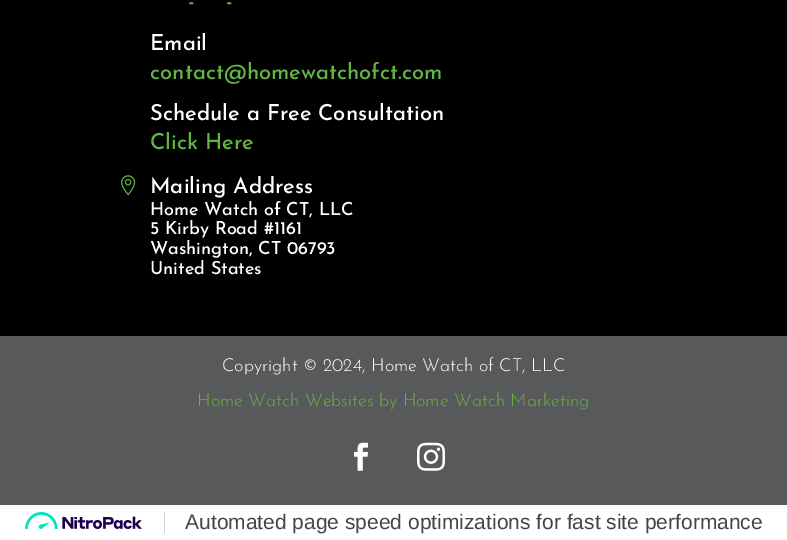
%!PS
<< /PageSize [787 540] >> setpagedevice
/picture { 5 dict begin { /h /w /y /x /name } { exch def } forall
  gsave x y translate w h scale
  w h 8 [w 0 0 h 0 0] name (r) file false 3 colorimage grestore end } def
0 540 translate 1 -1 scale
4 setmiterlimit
1 setgray
0 0 787 540 rectfill
0 setgray
0 0 787 336 rectfill
/JosefinSans-Thin [22 0 0 -22 0 0] selectfont
0.392 0.706 0.271 setrgbcolor
188 8 moveto (-) show
226 8 moveto (-) show
1 setgray
150 50 moveto (Email) show
0.392 0.706 0.271 setrgbcolor
150 79 moveto (contact@homewatchofct.com) show
1 setgray
150 120 moveto (Schedule a Free Consultation) show
0.392 0.706 0.271 setrgbcolor
150 149 moveto (Click Here) show
(img1.rgb) 121 175 15 21 picture
1 setgray
150 193 moveto (Mailing Address) show
/JosefinSans-Thin [18 0 0 -18 0 0] selectfont
150 215 moveto (Home Watch of CT, LLC) show
150 234 moveto (5 Kirby Road #1161) show
150 254 moveto (Washington, CT 06793) show
150 274 moveto (United States) show
0.345 0.349 0.357 setrgbcolor
0 336 787 169 rectfill
/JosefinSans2-Thin [18 0 0 -18 0 0] selectfont
1 setgray
222 371 moveto (Copyright © 2024, Home Watch of CT, LLC) show
0.392 0.706 0.271 setrgbcolor
197 406 moveto (Home Watch Websites by Home Watch Marketing) show
(img2.rgb) 354 442 15 29 picture
(img3.rgb) 417 442 28 29 picture
0.82 setgray
164 512 1 21 rectfill
(img4.rgb) 25 512 117 17 picture
/LiberationSans-Regular [21 0 0 -21 0 0] selectfont
0.271 setgray
185 529 moveto (Automated page speed optimizations for fast site performance) show
showpage
